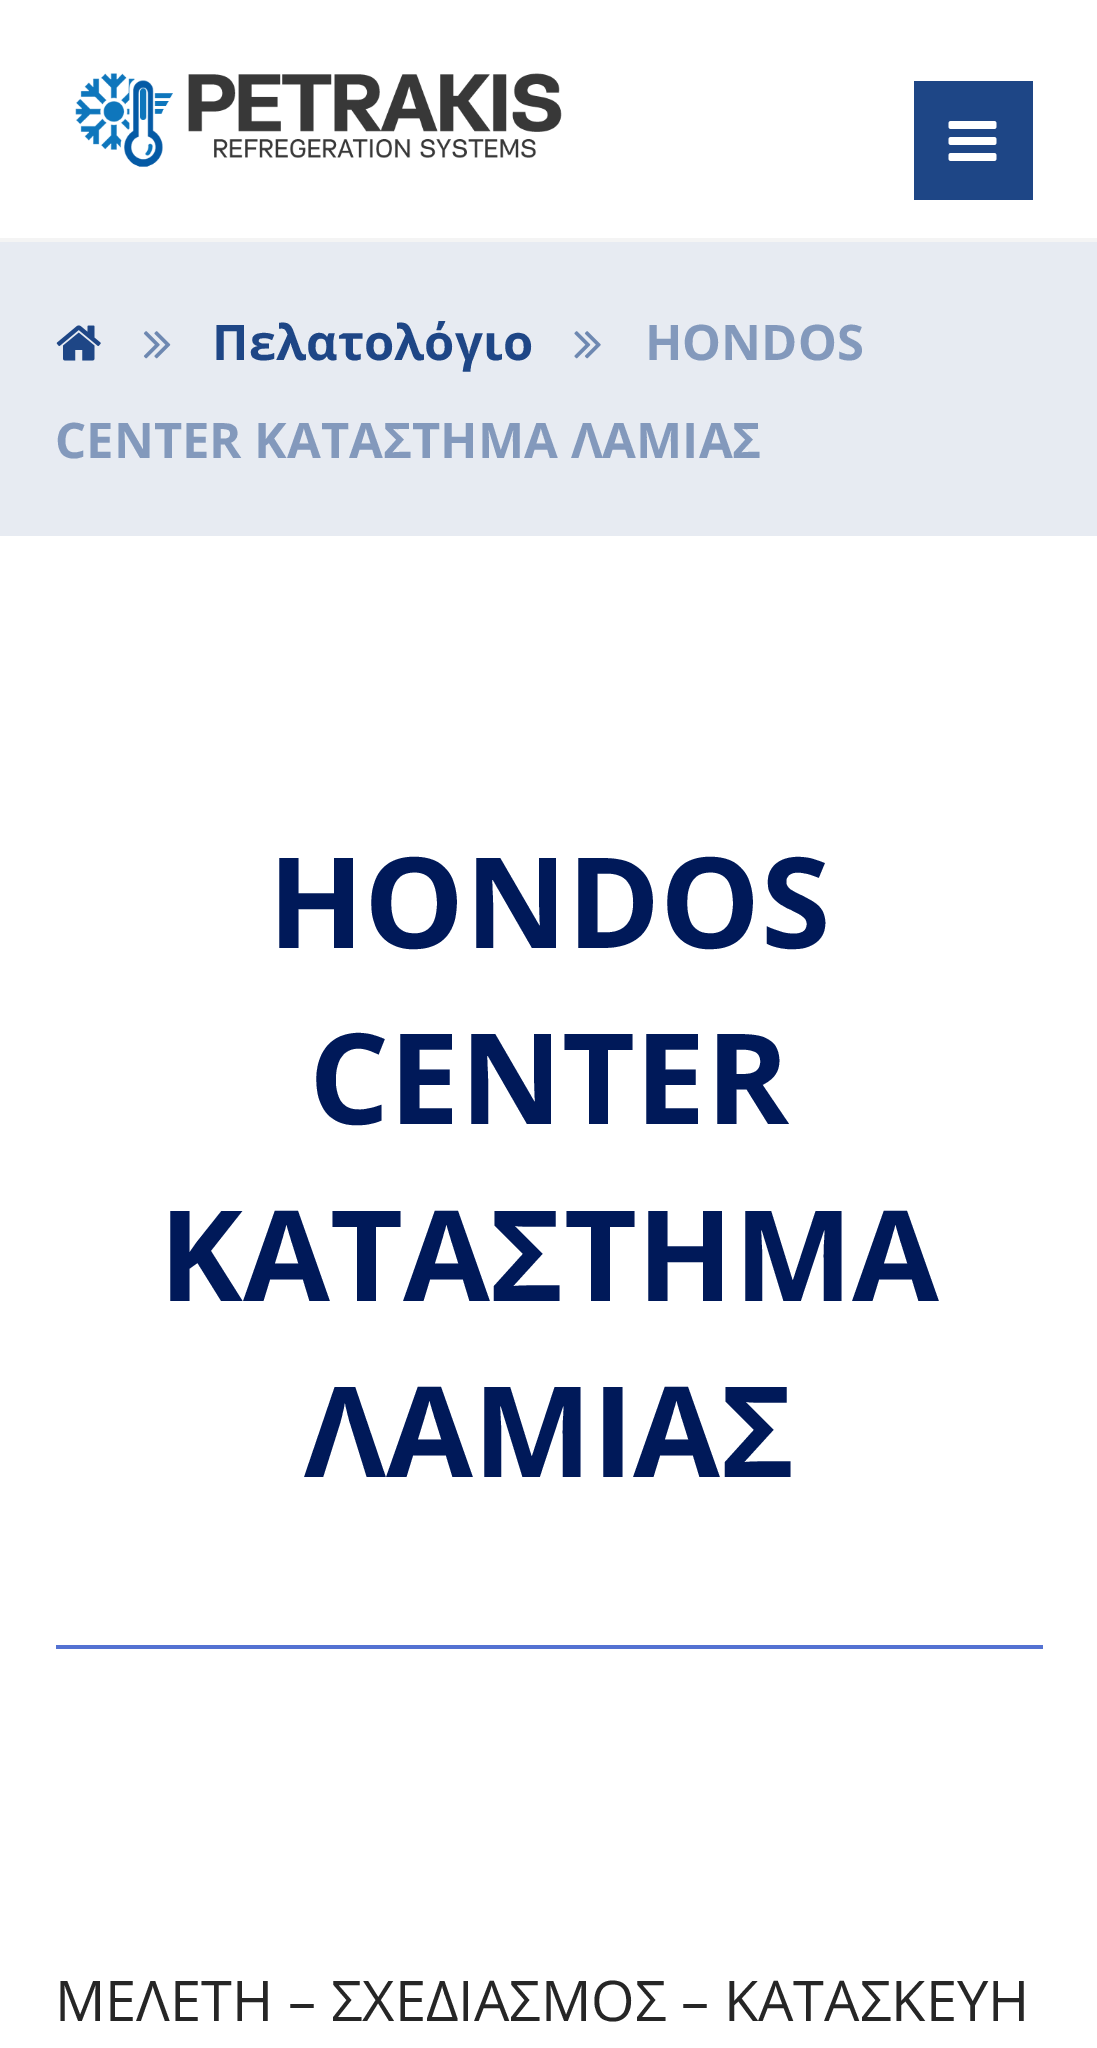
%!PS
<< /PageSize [1097 2048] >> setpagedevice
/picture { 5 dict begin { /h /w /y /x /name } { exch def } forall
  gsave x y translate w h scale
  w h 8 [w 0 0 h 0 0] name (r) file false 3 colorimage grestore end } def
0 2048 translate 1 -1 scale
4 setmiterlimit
1 setgray
0 0 1097 2048 rectfill
0.957 setgray
0 238 1097 4 rectfill
(img1.rgb) 75 73 487 94 picture
0.118 0.275 0.525 setrgbcolor
914 81 119 119 rectfill
(img2.rgb) 948 121 49 40 picture
0.906 0.922 0.949 setrgbcolor
0 242 1097 294 rectfill
(img3.rgb) 56 325 45 36 picture
(img4.rgb) 143 331 28 28 picture
/OpenSans-Bold [49 0 0 -49 0 0] selectfont
0.118 0.275 0.525 setrgbcolor
212 360 moveto (Πελατολόγιο) show
(img5.rgb) 574 331 27 28 picture
0.514 0.6 0.737 setrgbcolor
645 360 moveto (HONDOS) show
55 458 moveto (CENTER ΚΑΤΑΣΤΗΜΑ ΛΑΜΙΑΣ) show
/OpenSans-Bold [126 0 0 -126 0 0] selectfont
0 0.098 0.349 setrgbcolor
268 948 moveto (HONDOS) show
309 1124 moveto (CENTER) show
159 1301 moveto (ΚΑΤΑΣΤΗΜΑ) show
304 1477 moveto (ΛΑΜΙΑΣ) show
0.329 0.447 0.824 setrgbcolor
56 1645 987 4 rectfill
/OpenSans-Regular [56 0 0 -56 0 0] selectfont
0.149 setgray
55 2021 moveto (ΜΕΛΕΤΗ – ΣΧΕΔΙΑΣΜΟΣ – ΚΑΤΑΣΚΕΥΗ) show
showpage
